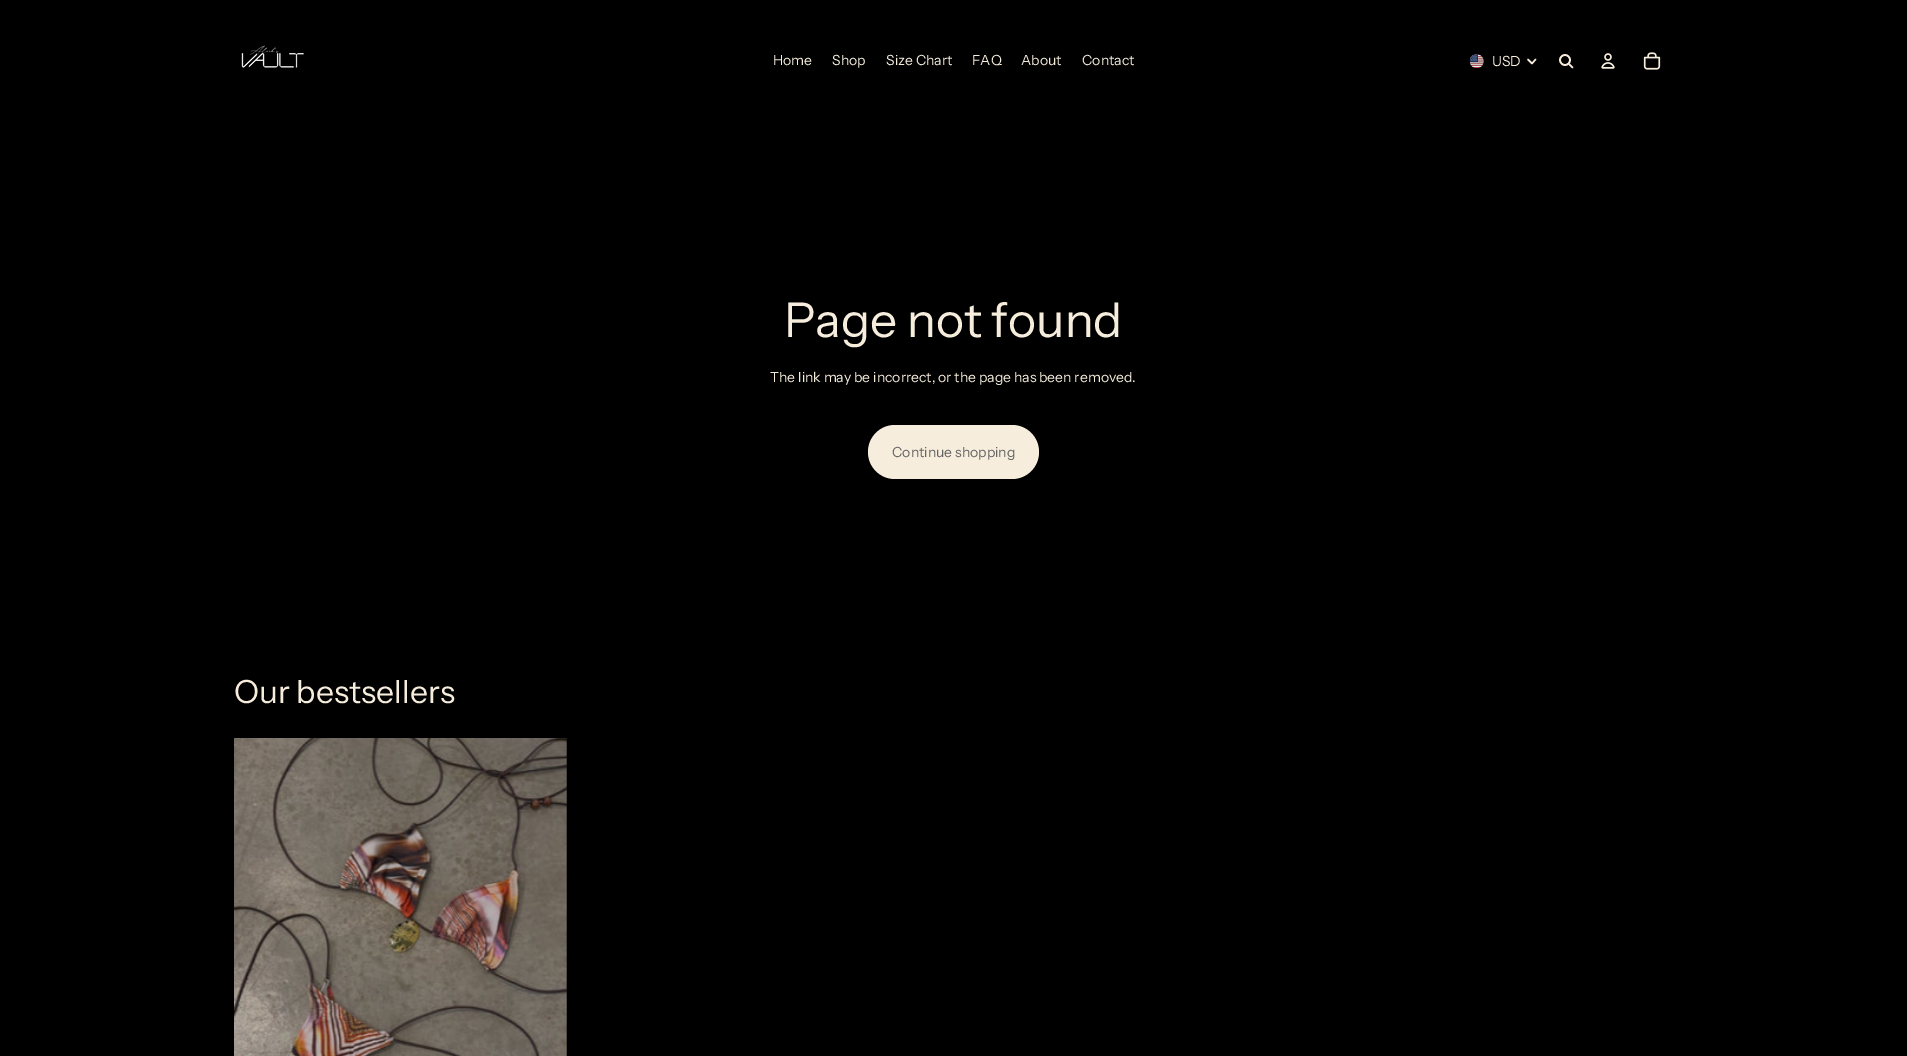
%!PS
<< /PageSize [1907 1056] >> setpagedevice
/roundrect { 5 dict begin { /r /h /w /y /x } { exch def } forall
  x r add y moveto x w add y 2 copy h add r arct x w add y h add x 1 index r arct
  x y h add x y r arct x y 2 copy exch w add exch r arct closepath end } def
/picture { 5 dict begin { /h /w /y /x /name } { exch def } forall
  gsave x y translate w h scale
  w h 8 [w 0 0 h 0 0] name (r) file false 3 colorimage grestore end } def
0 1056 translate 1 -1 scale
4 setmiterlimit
0 setgray
0 0 1907 1056 rectfill
(img1.rgb) 241 45 63 23 picture
/InstrumentSans-Regular [14 0 0 -14 0 0] selectfont
0.965 0.929 0.867 setrgbcolor
773 65 moveto (Home) show
832 65 moveto (Shop) show
886 65 moveto (Size Chart) show
972 65 moveto (FAQ) show
1021 65 moveto (About) show
1082 65 moveto (Contact) show
(img2.rgb) 1470 54 14 14 picture
1492 66 moveto (USD) show
1.5 setlinewidth
1 setlinecap
1 setlinejoin
newpath 1535.5 59.5 moveto 1532 63.5 lineto 1528 59.5 lineto stroke
1.7 setlinewidth
0 setlinecap
0 setlinejoin
newpath 1565 60 5 0 360 arc closepath stroke
1 setlinecap
1 setlinejoin
newpath 1569 64 moveto 1572.5 67.5 lineto stroke
(img3.rgb) 1601 53 14 16 picture
(img4.rgb) 1643 52 18 18 picture
/InstrumentSans-Regular [48 0 0 -48 0 0] selectfont
784 337 moveto (Page not found) show
/InstrumentSans-Regular [14 0 0 -14 0 0] selectfont
770 382 moveto (The link may be incorrect, or the page has been removed.) show
868 425 171 54 27 roundrect fill
0.388 setgray
892 457 moveto (Continue shopping) show
/InstrumentSans-Regular [32 0 0 -32 0 0] selectfont
0.965 0.929 0.867 setrgbcolor
234 703 moveto (Our bestsellers) show
(img5.rgb) 234 738 333 318 picture
showpage
